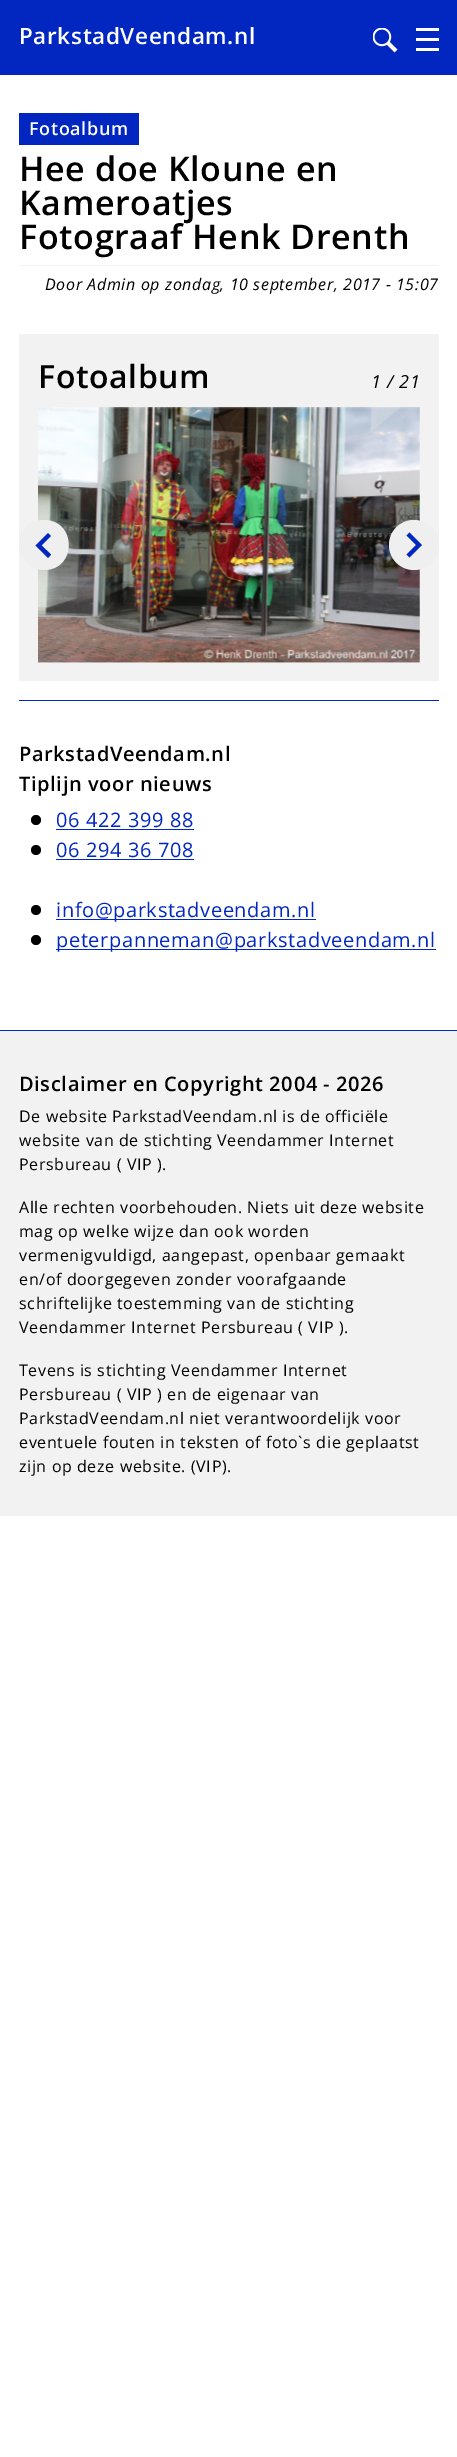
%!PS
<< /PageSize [457 2457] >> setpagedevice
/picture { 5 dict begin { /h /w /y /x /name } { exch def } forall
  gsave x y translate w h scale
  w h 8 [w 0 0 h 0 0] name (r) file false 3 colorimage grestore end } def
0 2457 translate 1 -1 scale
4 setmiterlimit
1 setgray
0 0 457 2457 rectfill
0.004 0.153 0.753 setrgbcolor
0 0 457 75 rectfill
/OpenSans-SemiBold [22.5 0 0 -22.5 0 0] selectfont
1 setgray
19 44 moveto 0.62 0 (ParkstadVeendam.nl) ashow
(img1.rgb) 373 28 25 25 picture
416 38 23 3 rectfill
416 28 23 3 rectfill
416 48 23 3 rectfill
0.004 0.153 0.753 setrgbcolor
19 700 420 1 rectfill
19 113 120 32 rectfill
/OpenSans-SemiBold [18 0 0 -18 0 0] selectfont
1 setgray
29 135 moveto 0.62 0 (Fotoalbum) ashow
/OpenSans-SemiBold [34 0 0 -34 0 0] selectfont
0 setgray
19 181 moveto 0.62 0 (Hee doe Kloune en) ashow
19 215 moveto 0.62 0 (Kameroatjes) ashow
19 249 moveto 0.62 0 (Fotograaf Henk Drenth) ashow
0.949 setgray
19 265 420 1 rectfill
/OpenSans-Italic [16 0 0 -16 0 0] selectfont
0 setgray
45 290 moveto 0.62 0 (Door Admin op zondag, 10 september, 2017 - 15:07) ashow
0.949 setgray
19 334 420 347 rectfill
/OpenSans-SemiBold [32 0 0 -32 0 0] selectfont
0 setgray
38 388 moveto 0.62 0 (Fotoalbum) ashow
/OpenSans-Italic [18 0 0 -18 0 0] selectfont
371 388 moveto 0.62 0 (1 / 21) ashow
(img2.rgb) 38 407 382 256 picture
0.937 setgray
newpath 44 570 moveto 11 570 11 520 44 520 curveto 77 520 77 570 44 570 curveto closepath fill
0.004 0.153 0.753 setrgbcolor
newpath 51 554.5 moveto 48 558 lineto 35.5 545.5 lineto 48 533 lineto 51 536 lineto 41.5 545.5 lineto closepath fill
0.937 setgray
newpath 414 545 25 0 360 arc closepath fill
0.004 0.153 0.753 setrgbcolor
newpath 406.5 535.5 moveto 409.5 532.5 lineto 422 545 lineto 409.5 557.5 lineto 406.5 554.5 lineto 416 545 lineto closepath fill
/OpenSans-SemiBold [20 0 0 -20 0 0] selectfont
0 setgray
19 761 moveto 0.62 0 (ParkstadVeendam.nl) ashow
19 791 moveto 0.62 0 (Tiplijn voor nieuws) ashow
newpath 36 820 5 0 360 arc closepath fill
/OpenSans-Regular [20 0 0 -20 0 0] selectfont
0.004 0.153 0.753 setrgbcolor
56 827 moveto 0.62 0 (06 422 399 88) ashow
56 829 138 1 rectfill
0 setgray
newpath 36 850 5 0 360 arc closepath fill
0.004 0.153 0.753 setrgbcolor
56 857 moveto 0.62 0 (06 294 36 708) ashow
56 859 138 1 rectfill
0 setgray
newpath 36 910 5 0 360 arc closepath fill
0.004 0.153 0.753 setrgbcolor
56 919 260 1 rectfill
56 917 moveto 0.62 0 (info@parkstadveendam.nl) ashow
0 setgray
newpath 36 940 5 0 360 arc closepath fill
0.004 0.153 0.753 setrgbcolor
56 949 380 1 rectfill
56 947 moveto 0.62 0 (peterpanneman@parkstadveendam.nl) ashow
0.949 setgray
0 1031 457 485 rectfill
0.004 0.153 0.753 setrgbcolor
0 1030 457 1 rectfill
/OpenSans-SemiBold [20 0 0 -20 0 0] selectfont
0 setgray
19 1091 moveto 0.62 0 (Disclaimer en Copyright 2004 - 2026) ashow
/OpenSans-Regular [16 0 0 -16 0 0] selectfont
19 1122 moveto 0.62 0 (De website ParkstadVeendam.nl is de officiële) ashow
19 1146 moveto 0.62 0 (website van de stichting Veendammer Internet) ashow
19 1170 moveto 0.62 0 (Persbureau \( VIP \).) ashow
19 1213 moveto 0.62 0 (Alle rechten voorbehouden. Niets uit deze website) ashow
19 1237 moveto 0.62 0 (mag op welke wijze dan ook worden) ashow
19 1261 moveto 0.62 0 (vermenigvuldigd, aangepast, openbaar gemaakt) ashow
19 1285 moveto 0.62 0 (en/of doorgegeven zonder voorafgaande) ashow
19 1309 moveto 0.62 0 (schriftelijke toestemming van de stichting) ashow
19 1333 moveto 0.62 0 (Veendammer Internet Persbureau \( VIP \).) ashow
19 1376 moveto 0.62 0 (Tevens is stichting Veendammer Internet) ashow
19 1400 moveto 0.62 0 (Persbureau \( VIP \) en de eigenaar van) ashow
19 1424 moveto 0.62 0 (ParkstadVeendam.nl niet verantwoordelijk voor) ashow
19 1448 moveto 0.62 0 (eventuele fouten in teksten of foto`s die geplaatst) ashow
19 1472 moveto 0.62 0 (zijn op deze website. \(VIP\).) ashow
showpage
